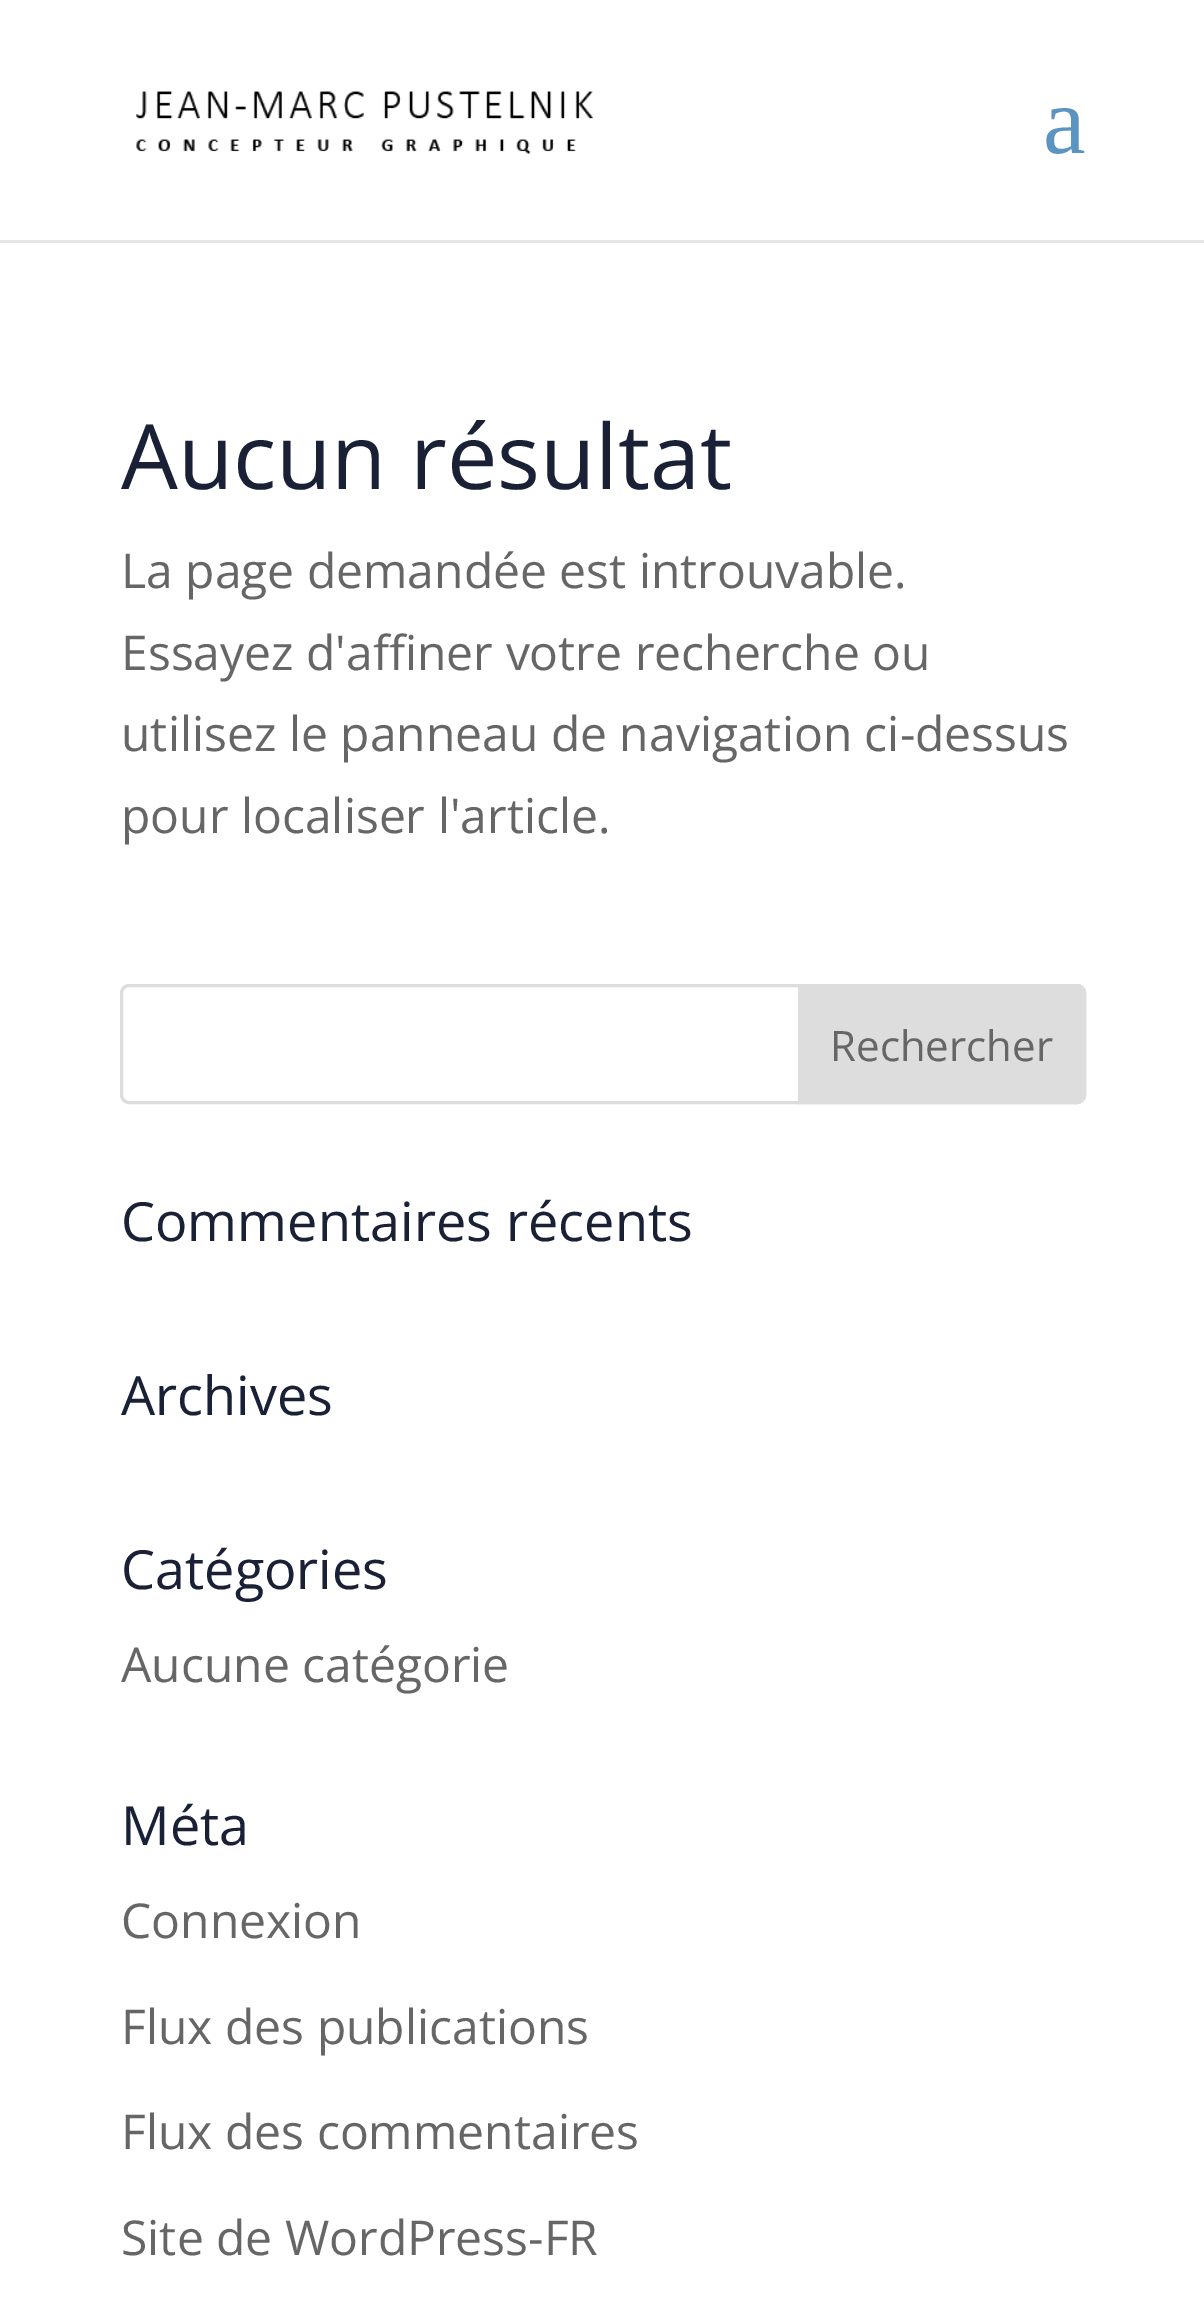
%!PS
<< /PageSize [1204 2312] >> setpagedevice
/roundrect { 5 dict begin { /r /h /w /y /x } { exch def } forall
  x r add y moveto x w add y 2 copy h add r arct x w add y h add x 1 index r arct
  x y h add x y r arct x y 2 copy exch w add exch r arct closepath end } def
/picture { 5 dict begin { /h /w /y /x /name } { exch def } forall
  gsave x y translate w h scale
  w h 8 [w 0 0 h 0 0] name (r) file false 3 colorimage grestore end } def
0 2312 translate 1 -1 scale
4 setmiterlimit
1 setgray
0 0 1204 2312 rectfill
0.902 setgray
0 240 1204 3 rectfill
(img1.rgb) 136 91 457 63 picture
/LiberationSerif-Regular [96 0 0 -96 0 0] selectfont
0.357 0.576 0.757 setrgbcolor
1043 153 moveto (a) show
/OpenSans-Regular [90 0 0 -90 0 0] selectfont
0.102 0.125 0.208 setrgbcolor
121 489 moveto (Aucun résultat) show
/OpenSans-Regular [48 0 0 -48 0 0] selectfont
0.4 setgray
121 588 moveto (La page demandée est introuvable.) show
121 670 moveto (Essayez d'affiner votre recherche ou) show
121 751 moveto (utilisez le panneau de navigation ci-dessus) show
121 833 moveto (pour localiser l'article.) show
0.867 setgray
3 setlinewidth
121.5 985.5 963 117 7.5 roundrect stroke
newpath 799.5 985.5 moveto 1077 985.5 lineto 1081 985.5 1084.5 989 1084.5 993 curveto 1084.5 1095 lineto 1084.5 1099 1081 1102.5 1077 1102.5 curveto 799.5 1102.5 lineto closepath gsave fill grestore
stroke
/OpenSans-Regular [42 0 0 -42 0 0] selectfont
0.4 setgray
830 1061 moveto (Rechercher) show
/OpenSans-Regular [54 0 0 -54 0 0] selectfont
0.102 0.125 0.208 setrgbcolor
121 1241 moveto (Commentaires récents) show
121 1415 moveto (Archives) show
121 1589 moveto (Catégories) show
/OpenSans-Regular [48 0 0 -48 0 0] selectfont
0.4 setgray
121 1682 moveto (Aucune catégorie) show
/OpenSans-Regular [54 0 0 -54 0 0] selectfont
0.102 0.125 0.208 setrgbcolor
121 1845 moveto (Méta) show
/OpenSans-Regular [48 0 0 -48 0 0] selectfont
0.4 setgray
121 1938 moveto (Connexion) show
121 2044 moveto (Flux des publications) show
121 2149 moveto (Flux des commentaires) show
121 2255 moveto (Site de WordPress-FR) show
showpage
